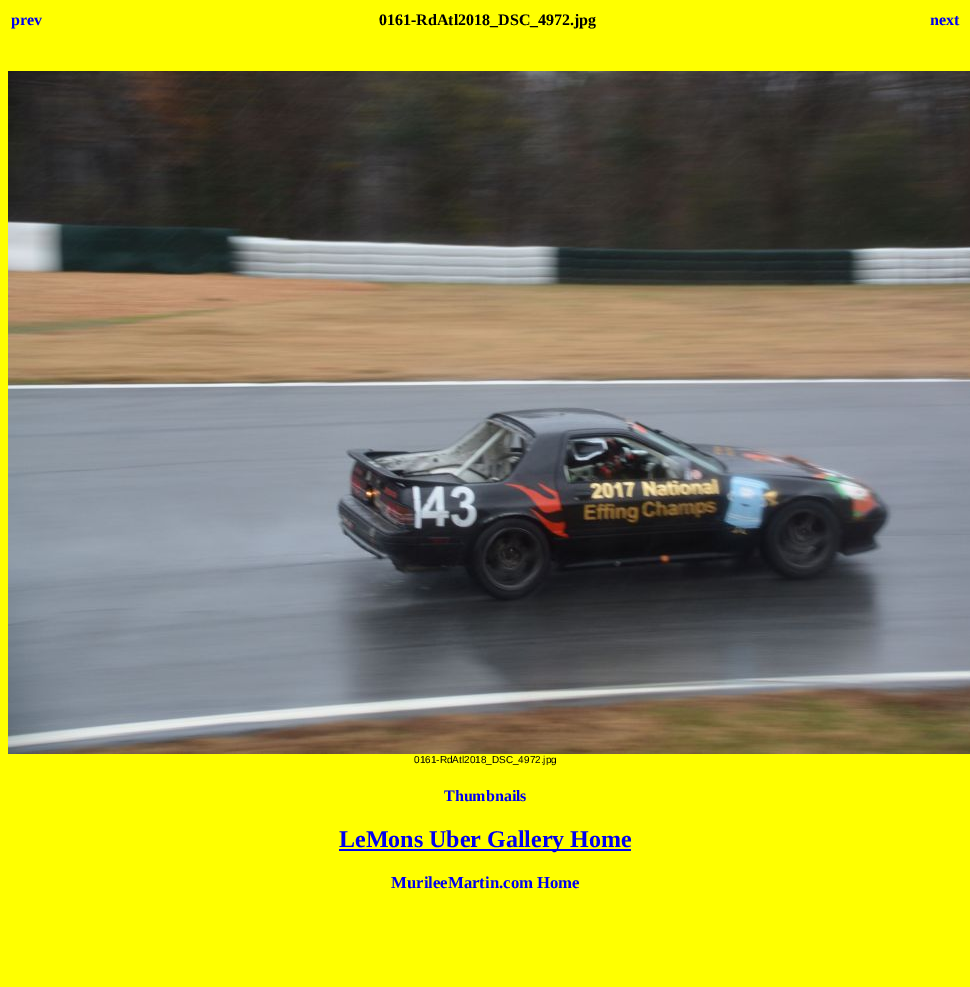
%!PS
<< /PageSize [970 987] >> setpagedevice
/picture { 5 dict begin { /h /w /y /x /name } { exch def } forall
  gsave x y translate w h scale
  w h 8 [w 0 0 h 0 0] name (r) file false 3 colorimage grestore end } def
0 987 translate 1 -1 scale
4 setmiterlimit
1 1 0 setrgbcolor
0 0 970 987 rectfill
/LiberationSerif-Bold [16 0 0 -16 0 0] selectfont
0 0 0.933 setrgbcolor
11 25 moveto (prev) show
0 setgray
379 25 moveto (0161-RdAtl2018_DSC_4972.jpg) show
0 0 0.933 setrgbcolor
930 25 moveto (next) show
(img1.rgb) 8 71 962 683 picture
/LiberationSans-Regular [10 0 0 -10 0 0] selectfont
0 setgray
414 763 moveto (0161-RdAtl2018_DSC_4972.jpg) show
/LiberationSerif-Bold [16 0 0 -16 0 0] selectfont
0 0 0.933 setrgbcolor
444 801 moveto (Thumbnails) show
339 849 292 2 rectfill
/LiberationSerif-Bold [24 0 0 -24 0 0] selectfont
339 847 moveto (LeMons Uber Gallery Home) show
/LiberationSerif-Bold [16.75 0 0 -16.75 0 0] selectfont
391 888 moveto (MurileeMartin.com Home) show
showpage
